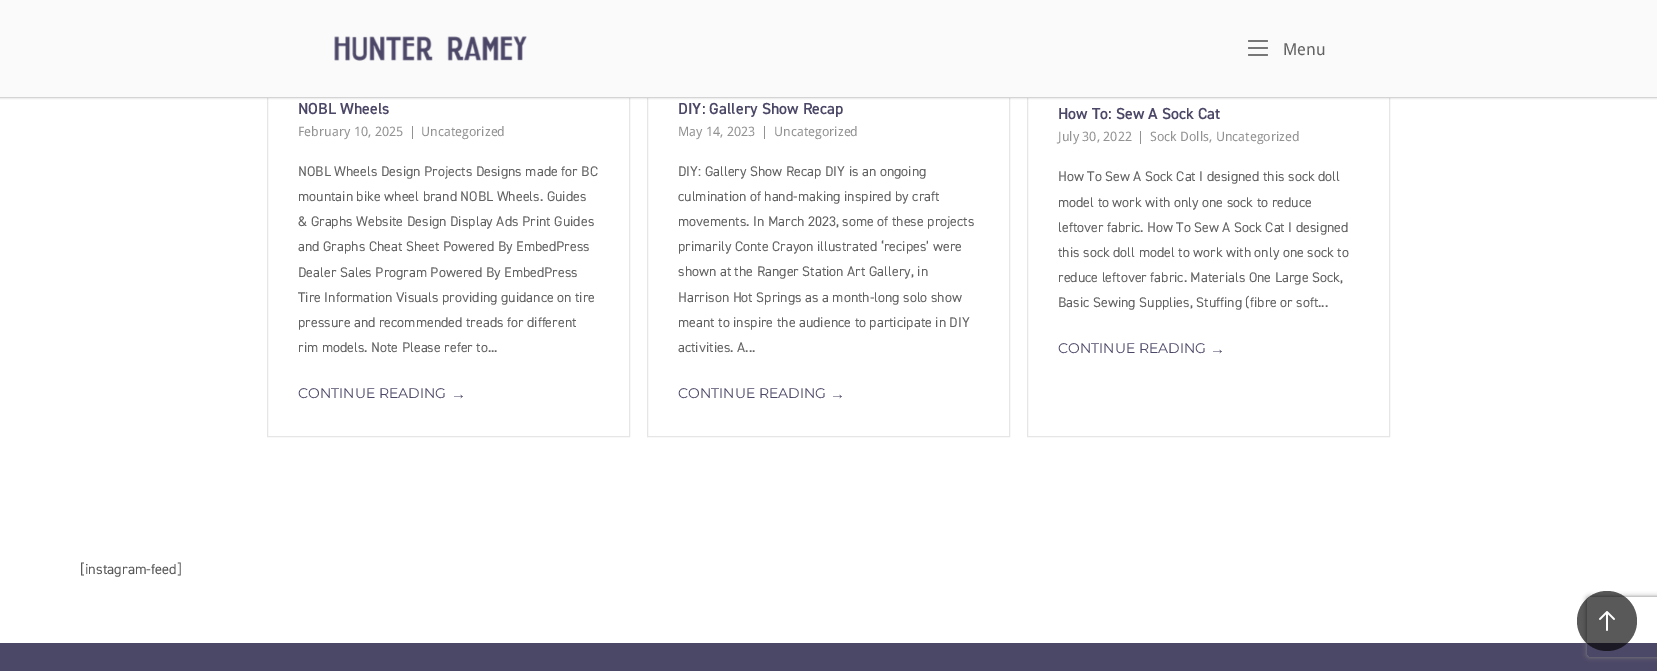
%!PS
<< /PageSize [1657 671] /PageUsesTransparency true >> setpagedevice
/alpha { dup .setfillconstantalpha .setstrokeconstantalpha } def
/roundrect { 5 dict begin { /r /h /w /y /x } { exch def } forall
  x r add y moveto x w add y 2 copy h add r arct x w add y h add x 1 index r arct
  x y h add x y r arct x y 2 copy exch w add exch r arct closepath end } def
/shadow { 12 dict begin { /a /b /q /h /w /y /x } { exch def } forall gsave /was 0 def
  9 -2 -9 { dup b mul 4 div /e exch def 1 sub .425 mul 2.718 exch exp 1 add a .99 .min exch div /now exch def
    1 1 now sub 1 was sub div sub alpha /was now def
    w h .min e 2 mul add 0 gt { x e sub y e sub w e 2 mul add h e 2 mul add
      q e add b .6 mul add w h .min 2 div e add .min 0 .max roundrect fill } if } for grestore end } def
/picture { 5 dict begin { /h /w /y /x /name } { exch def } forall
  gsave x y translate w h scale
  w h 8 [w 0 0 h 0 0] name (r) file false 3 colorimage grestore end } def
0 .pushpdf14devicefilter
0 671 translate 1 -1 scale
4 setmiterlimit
1 setgray
0 0 1657 671 rectfill
0.902 setgray
267.5 -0.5 362 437 rectstroke
647.5 -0.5 362 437 rectstroke
1027.5 -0.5 362 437 rectstroke
0 setgray
0 1 1657 98 0 0.5 0.07 shadow
0.98 setgray
0 0 1657 97 rectfill
0.831 setgray
0 97 1657 1 rectfill
(img1.rgb) 334 36 193 25 picture
0.467 setgray
1248 40 20 2 1 roundrect fill
1248 47 20 2 1 roundrect fill
1248 54 20 2 1 roundrect fill
/DroidSans-Regular [16.5 0 0 -16.5 0 0] selectfont
0.384 setgray
1283 55 moveto (Menu) show
/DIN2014-SemiBold [16 0 0 -16 0 0] selectfont
0.294 0.278 0.4 setrgbcolor
298 114 moveto (NOBL Wheels) show
/DroidSans-Regular [13 0 0 -13 0 0] selectfont
0.573 setgray
298 136 moveto (February 10, 2025) show
409 136 moveto (|) show
421 136 moveto (Uncategorized) show
/DIN2014-Regular [14 0 0 -14 0 0] selectfont
0.384 setgray
298 176 moveto (NOBL Wheels Design Projects Designs made for BC) show
298 201 moveto (mountain bike wheel brand NOBL Wheels. Guides) show
298 226 moveto (& Graphs Website Design Display Ads Print Guides) show
298 251 moveto (and Graphs Cheat Sheet Powered By EmbedPress) show
298 277 moveto (Dealer Sales Program Powered By EmbedPress) show
298 302 moveto (Tire Information Visuals providing guidance on tire) show
298 327 moveto (pressure and recommended treads for different) show
298 352 moveto (rim models. Note Please refer to...) show
/Montserrat-Thin [14 0 0 -14 0 0] selectfont
0.294 0.278 0.4 setrgbcolor
298 398 moveto (CONTINUE READING) show
/LiberationSans-Regular [15 0 0 -15 0 0] selectfont
451 399 moveto (→) show
/DIN2014-SemiBold [16 0 0 -16 0 0] selectfont
678 114 moveto (DIY: Gallery Show Recap) show
/DroidSans-Regular [13 0 0 -13 0 0] selectfont
0.573 setgray
678 136 moveto (May 14, 2023) show
761 136 moveto (|) show
774 136 moveto (Uncategorized) show
/DIN2014-Regular [14 0 0 -14 0 0] selectfont
0.384 setgray
678 176 moveto (DIY: Gallery Show Recap DIY is an ongoing) show
678 201 moveto (culmination of hand-making inspired by craft) show
678 226 moveto (movements. In March 2023, some of these projects) show
678 251 moveto (primarily Conte Crayon illustrated ‘recipes’ were) show
678 276 moveto (shown at the Ranger Station Art Gallery, in) show
678 302 moveto (Harrison Hot Springs as a month-long solo show) show
678 327 moveto (meant to inspire the audience to participate in DIY) show
678 352 moveto (activities. A...) show
/Montserrat-Thin [14 0 0 -14 0 0] selectfont
0.294 0.278 0.4 setrgbcolor
678 398 moveto (CONTINUE READING) show
/LiberationSans-Regular [15 0 0 -15 0 0] selectfont
830 399 moveto (→) show
/DIN2014-SemiBold [16 0 0 -16 0 0] selectfont
1058 119 moveto (How To: Sew A Sock Cat) show
/DroidSans-Regular [13 0 0 -13 0 0] selectfont
0.573 setgray
1058 141 moveto (July 30, 2022) show
1137 141 moveto (|) show
1150 141 moveto (Sock Dolls, Uncategorized) show
/DIN2014-Regular [14 0 0 -14 0 0] selectfont
0.384 setgray
1058 181 moveto (How To Sew A Sock Cat I designed this sock doll) show
1058 207 moveto (model to work with only one sock to reduce) show
1058 232 moveto (leftover fabric. How To Sew A Sock Cat I designed) show
1058 257 moveto (this sock doll model to work with only one sock to) show
1058 282 moveto (reduce leftover fabric. Materials One Large Sock,) show
1058 307 moveto (Basic Sewing Supplies, Stuffing \(fibre or soft...) show
/Montserrat-Thin [14 0 0 -14 0 0] selectfont
0.294 0.278 0.4 setrgbcolor
1058 353 moveto (CONTINUE READING) show
/LiberationSans-Regular [15 0 0 -15 0 0] selectfont
1210 354 moveto (→) show
/DIN2014-Regular [14.5 0 0 -14.5 0 0] selectfont
0.349 setgray
80 574 moveto ([instagram-feed]) show
0.294 0.278 0.4 setrgbcolor
0 643 1657 28 rectfill
gsave
newpath 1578 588 moveto 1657 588 lineto 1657 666 lineto 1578 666 lineto closepath 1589 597 moveto 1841 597 lineto 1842 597 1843 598 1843 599 curveto 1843 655 lineto 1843 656 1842 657 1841 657 curveto 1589 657 lineto 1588 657 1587 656 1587 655 curveto 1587 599 lineto 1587 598 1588 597 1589 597 curveto closepath eoclip newpath
0.502 setgray
1587 597 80 60 2 2.5 1 shadow
grestore
0.65 alpha
0 setgray
newpath 1607 621 30 0 360 arc closepath fill
1 alpha
(img2.rgb) 1599 611 16 20 picture
.poppdf14devicefilter showpage
